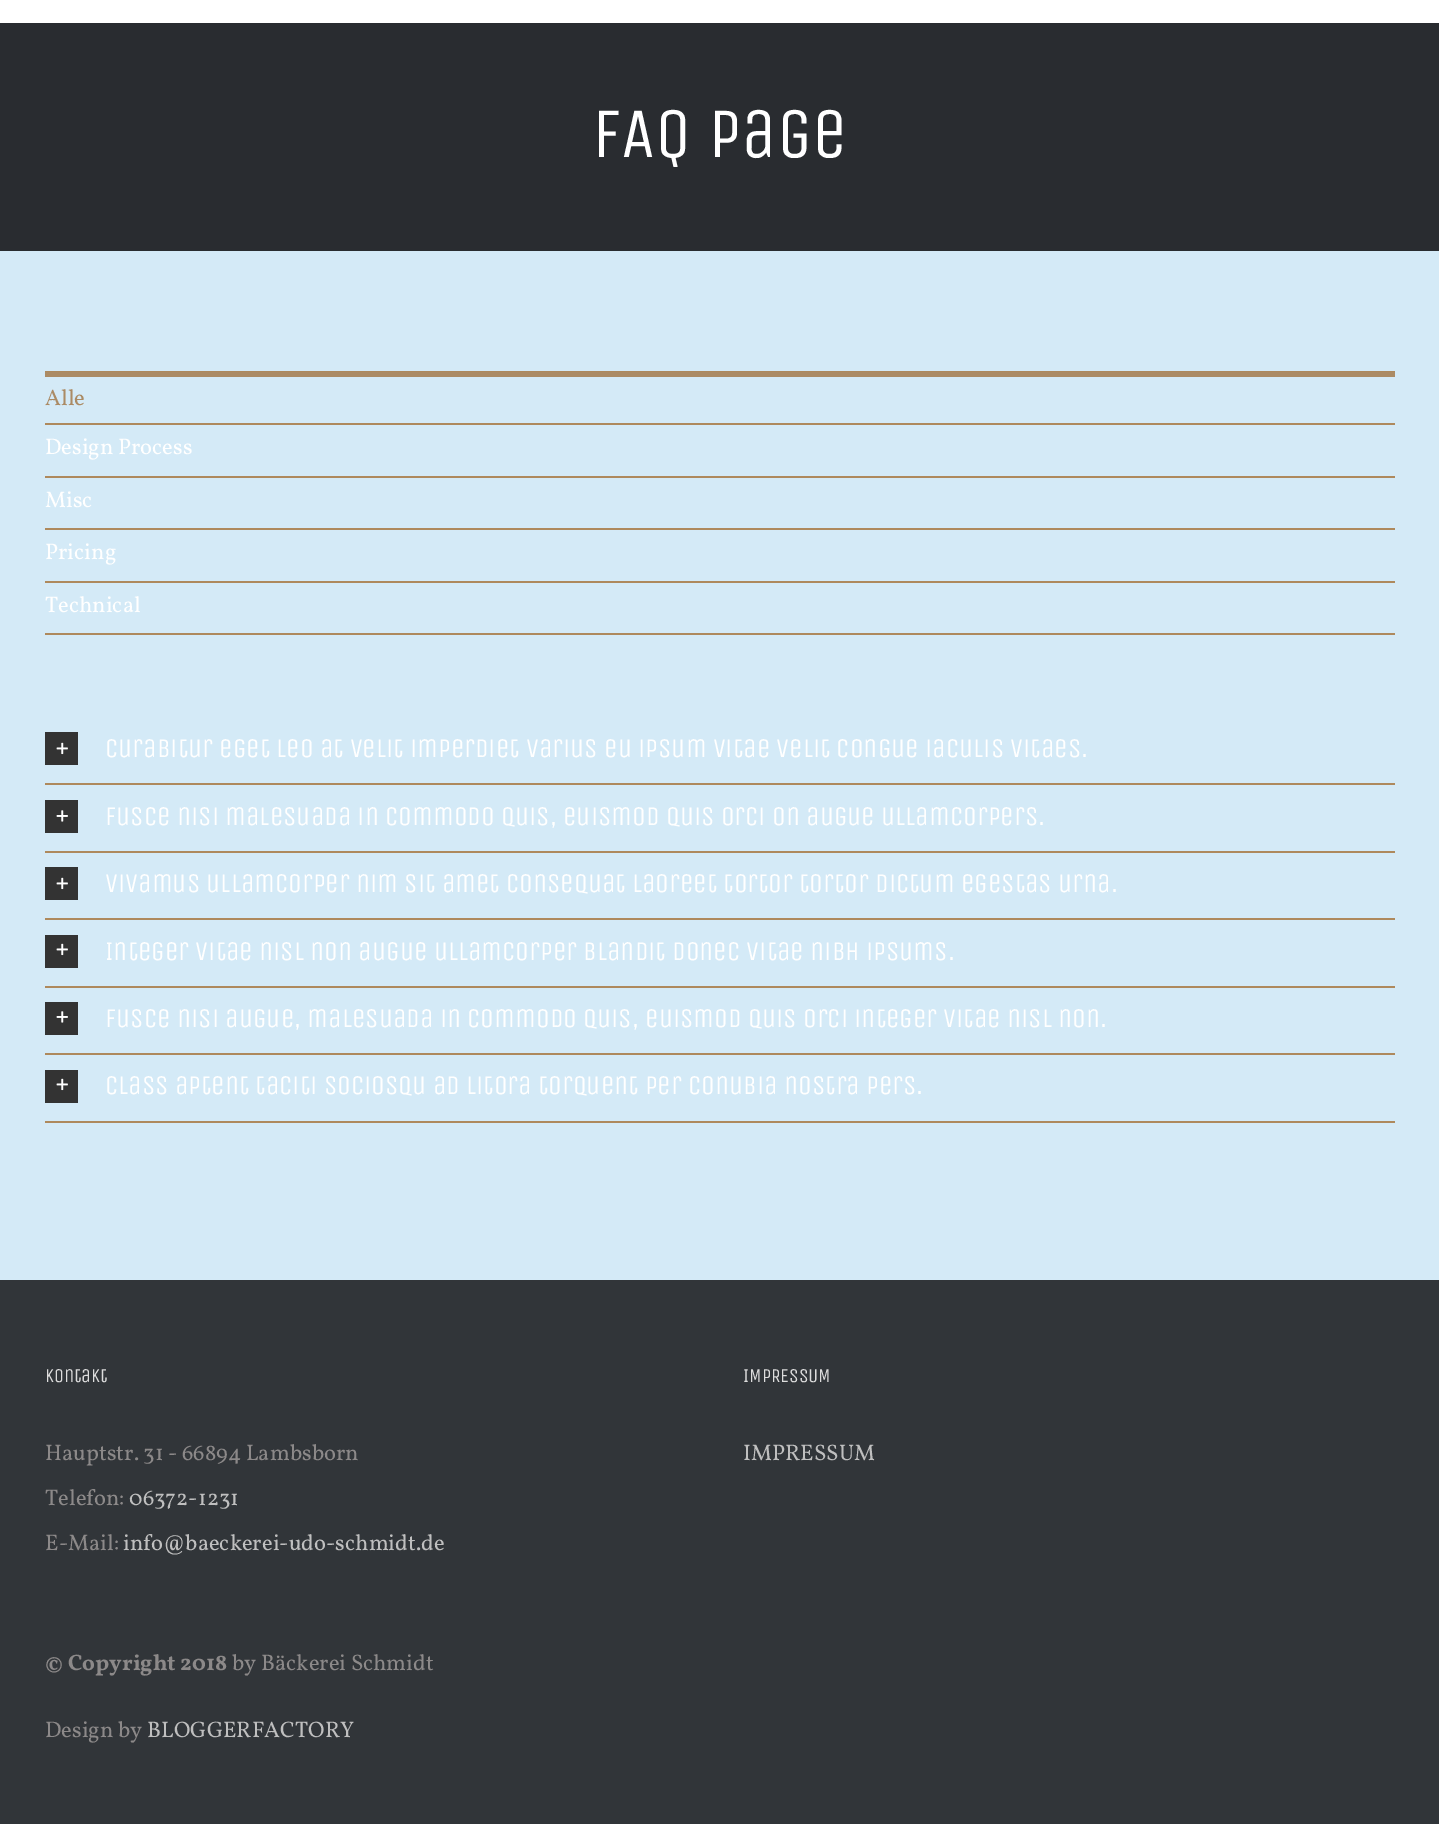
%!PS
<< /PageSize [1439 1824] >> setpagedevice
/picture { 5 dict begin { /h /w /y /x /name } { exch def } forall
  gsave x y translate w h scale
  w h 8 [w 0 0 h 0 0] name (r) file false 3 colorimage grestore end } def
0 1824 translate 1 -1 scale
4 setmiterlimit
0.831 0.918 0.969 setrgbcolor
0 0 1439 1824 rectfill
1 setgray
0 0 1439 23 rectfill
0.161 0.173 0.188 setrgbcolor
0 23 1439 228 rectfill
/UnicaOne-Regular [71 0 0 -71 0 0] selectfont
1 setgray
592 157 moveto (FAQ Page) show
0.682 0.537 0.365 setrgbcolor
45 371 1350 1 rectfill
45 423 1350 2 rectfill
0.671 0.545 0.396 setrgbcolor
45 372 1350 5 rectfill
/Vollkorn-Regular [22.5 0 0 -22.5 0 0] selectfont
45 405 moveto (Alle) show
0.682 0.537 0.365 setrgbcolor
45 476 1350 2 rectfill
1 setgray
45 454 moveto (Design Process) show
0.682 0.537 0.365 setrgbcolor
45 528 1350 2 rectfill
1 setgray
45 507 moveto (Misc) show
0.682 0.537 0.365 setrgbcolor
45 581 1350 2 rectfill
1 setgray
45 559 moveto (Pricing) show
0.682 0.537 0.365 setrgbcolor
45 633 1350 2 rectfill
1 setgray
45 612 moveto (Technical) show
0.682 0.537 0.365 setrgbcolor
45 783 1350 2 rectfill
0.2 setgray
45 732 33 33 rectfill
(img1.rgb) 56 742 12 13 picture
/UnicaOne-Regular [27 0 0 -27 0 0] selectfont
1 setgray
105 757 moveto (Curabitur eget leo at velit imperdiet varius eu ipsum vitae velit congue iaculis vitaes.) show
0.682 0.537 0.365 setrgbcolor
45 851 1350 2 rectfill
0.2 setgray
45 800 33 33 rectfill
(img2.rgb) 56 810 12 12 picture
1 setgray
105 825 moveto (Fusce nisi malesuada in commodo quis, euismod quis orci on augue ullamcorpers.) show
0.682 0.537 0.365 setrgbcolor
45 918 1350 2 rectfill
0.2 setgray
45 867 33 33 rectfill
(img1.rgb) 56 877 12 13 picture
1 setgray
105 892 moveto (Vivamus ullamcorper nim sit amet consequat laoreet tortor tortor dictum egestas urna.) show
0.682 0.537 0.365 setrgbcolor
45 986 1350 2 rectfill
0.2 setgray
45 935 33 33 rectfill
(img1.rgb) 56 943 12 13 picture
1 setgray
105 960 moveto (Integer vitae nisl non augue ullamcorper blandit donec vitae nibh ipsums.) show
0.682 0.537 0.365 setrgbcolor
45 1053 1350 2 rectfill
0.2 setgray
45 1002 33 33 rectfill
(img2.rgb) 56 1011 12 12 picture
1 setgray
105 1027 moveto (Fusce nisi augue, malesuada in commodo quis, euismod quis orci integer vitae nisl non.) show
0.682 0.537 0.365 setrgbcolor
45 1121 1350 2 rectfill
0.2 setgray
45 1070 33 33 rectfill
(img1.rgb) 56 1078 12 13 picture
1 setgray
105 1094 moveto (Class aptent taciti sociosqu ad litora torquent per conubia nostra pers.) show
0.192 0.208 0.224 setrgbcolor
0 1280 1439 544 rectfill
/UnicaOne-Regular [19.5 0 0 -19.5 0 0] selectfont
0.867 setgray
45 1382 moveto (Kontakt) show
/Vollkorn-Regular [22.5 0 0 -22.5 0 0] selectfont
0.549 0.537 0.537 setrgbcolor
45 1460 moveto (Hauptstr. 31 - 66894 Lambsborn) show
45 1505 moveto (Telefon:) show
0.749 setgray
129 1505 moveto (06372-1231) show
0.549 0.537 0.537 setrgbcolor
45 1550 moveto (E-Mail:) show
0.749 setgray
123 1550 moveto (info@baeckerei-udo-schmidt.de) show
/Vollkorn-Bold [22.5 0 0 -22.5 0 0] selectfont
0.549 0.537 0.537 setrgbcolor
45 1670 moveto (© Copyright 2018) show
/Vollkorn-Regular [22.5 0 0 -22.5 0 0] selectfont
232 1670 moveto (by Bäckerei Schmidt) show
45 1737 moveto (Design by) show
0.749 setgray
147 1737 moveto (BLOGGERFACTORY) show
/UnicaOne-Regular [19.5 0 0 -19.5 0 0] selectfont
0.867 setgray
743 1382 moveto (IMPRESSUM) show
/Vollkorn-Regular [22.5 0 0 -22.5 0 0] selectfont
0.749 setgray
743 1460 moveto (IMPRESSUM) show
showpage
